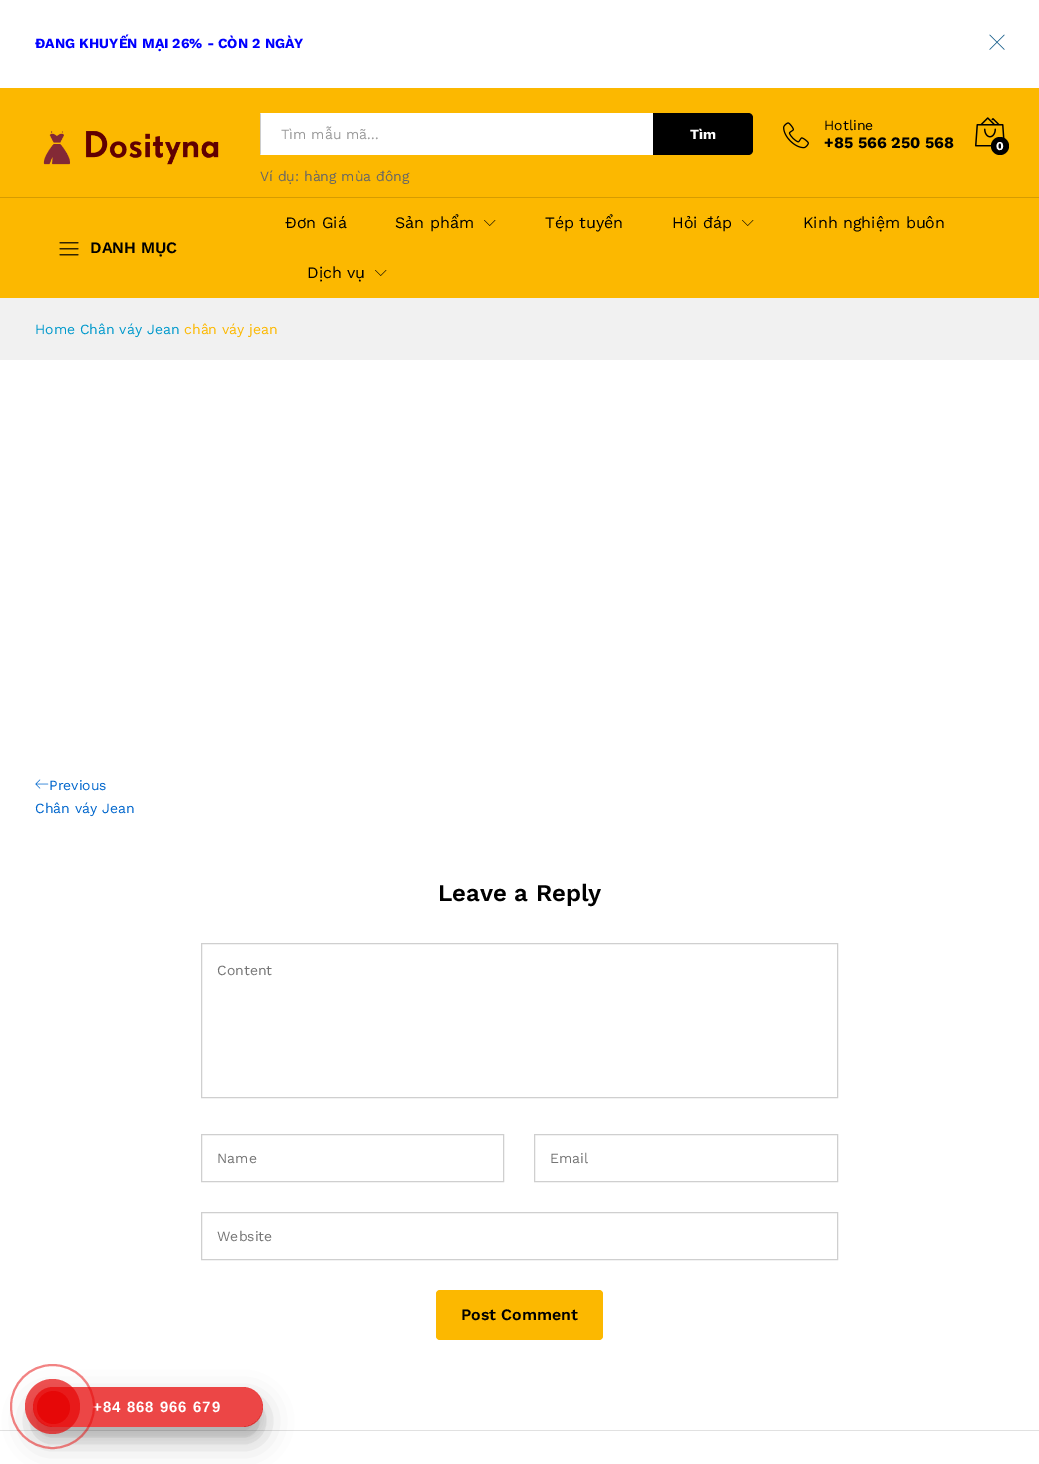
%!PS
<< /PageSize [1039 1464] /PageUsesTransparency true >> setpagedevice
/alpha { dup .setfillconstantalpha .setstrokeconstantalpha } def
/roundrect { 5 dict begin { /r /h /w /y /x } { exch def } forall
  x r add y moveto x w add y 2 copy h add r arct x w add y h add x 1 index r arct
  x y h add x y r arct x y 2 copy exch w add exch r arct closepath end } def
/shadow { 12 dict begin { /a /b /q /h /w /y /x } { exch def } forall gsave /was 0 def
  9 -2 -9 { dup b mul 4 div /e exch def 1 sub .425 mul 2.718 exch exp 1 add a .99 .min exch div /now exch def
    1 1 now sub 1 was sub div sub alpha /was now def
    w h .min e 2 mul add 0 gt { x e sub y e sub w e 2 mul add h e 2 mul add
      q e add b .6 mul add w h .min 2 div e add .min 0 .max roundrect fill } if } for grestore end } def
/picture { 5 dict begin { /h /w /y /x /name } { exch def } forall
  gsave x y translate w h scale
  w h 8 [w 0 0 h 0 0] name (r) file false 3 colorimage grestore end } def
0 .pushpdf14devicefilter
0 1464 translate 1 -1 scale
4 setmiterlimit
1 setgray
0 0 1039 1464 rectfill
/WorkSans-Bold [14 0 0 -14 0 0] selectfont
0 0 1 setrgbcolor
35 48 moveto (ĐANG KHUYẾN MẠI 26% - CÒN 2 NGÀY) show
(img1.rgb) 989 34 16 16 picture
0.988 0.722 0 setrgbcolor
0 88 1039 210 rectfill
(img2.rgb) 43 131 176 34 picture
1 setgray
newpath 261 113 moveto 261 155 lineto 260.5 155 260 154.5 260 154 curveto 260 114 lineto 260 113.5 260.5 113 261 113 curveto closepath fill
0.8 setgray
newpath 261 113 moveto 260 114 lineto 260 154 lineto 261 155 lineto closepath fill
1 setgray
261 113 392 42 rectfill
/WorkSans-Regular [14 0 0 -14 0 0] selectfont
0.6 setgray
281 139 moveto (Tìm mẫu mã...) show
0 setgray
newpath 653 113 moveto 748 113 lineto 751 113 753 115 753 118 curveto 753 150 lineto 753 153 751 155 748 155 curveto 653 155 lineto closepath fill
/WorkSans-Bold [14 0 0 -14 0 0] selectfont
1 setgray
690 139 moveto (Tìm) show
/WorkSans-Regular [14 0 0 -14 0 0] selectfont
0.4 setgray
260 181 moveto (Ví dụ: hàng mùa đông) show
(img3.rgb) 783 122 26 27 picture
0 setgray
824 130 moveto (Hotline) show
/WorkSans-Bold [16 0 0 -16 0 0] selectfont
824 148 moveto (+85 566 250 568) show
(img4.rgb) 975 117 30 30 picture
newpath 1000 146 9 0 360 arc closepath fill
/WorkSans-Bold [12 0 0 -12 0 0] selectfont
1 setgray
996 150 moveto (0) show
0.839 0.612 0 setrgbcolor
0 197 1039 1 rectfill
(img5.rgb) 59 242 20 14 picture
/WorkSans-SemiBold [16 0 0 -16 0 0] selectfont
0 setgray
90 253 moveto (DANH MỤC) show
/WorkSans-Regular [16 0 0 -16 0 0] selectfont
285 228 moveto (Đơn Giá) show
395 228 moveto (Sản phẩm) show
(img6.rgb) 484 220 12 6 picture
545 228 moveto (Tép tuyển) show
672 228 moveto (Hỏi đáp) show
(img6.rgb) 742 220 12 6 picture
803 228 moveto (Kinh nghiệm buôn) show
307 278 moveto (Dịch vụ) show
(img6.rgb) 375 270 12 6 picture
0.945 setgray
0 298 1039 62 rectfill
/WorkSans-Regular [14 0 0 -14 0 0] selectfont
0 0.6 0.8 setrgbcolor
35 334 moveto (Home Chân váy Jean) show
0.988 0.722 0 setrgbcolor
184 334 moveto (chân váy jean) show
(img7.rgb) 35 779 14 10 picture
0 0.4 0.8 setrgbcolor
49 790 moveto (Previous) show
35 813 moveto (Chân váy Jean) show
/WorkSans-SemiBold [24 0 0 -24 0 0] selectfont
0 setgray
438 901 moveto (Leave a Reply) show
0.812 setgray
201.5 943.5 636 154 rectstroke
/WorkSans-Regular [14 0 0 -14 0 0] selectfont
0.459 setgray
217 975 moveto (Content) show
0.812 setgray
201.5 1134.5 302 47 rectstroke
0.459 setgray
217 1163 moveto (Name) show
0.812 setgray
534.5 1134.5 303 47 rectstroke
0.459 setgray
550 1163 moveto (Email) show
0.812 setgray
201.5 1212.5 636 47 rectstroke
0.459 setgray
217 1241 moveto (Website) show
0.988 0.722 0 setrgbcolor
436 1290 167 50 4 roundrect fill
/WorkSans-SemiBold [16 0 0 -16 0 0] selectfont
0 setgray
461 1320 moveto (Post Comment) show
0.882 setgray
0 1430 1039 1 rectfill
gsave
newpath 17 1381 moveto 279 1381 lineto 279 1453 lineto 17 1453 lineto closepath 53 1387 moveto 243 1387 lineto 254 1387 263 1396 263 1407 curveto 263 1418 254 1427 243 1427 curveto 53 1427 lineto 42 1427 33 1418 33 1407 curveto 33 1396 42 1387 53 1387 curveto closepath eoclip newpath
0 setgray
33 1397 230 40 20 5 0.1 shadow
grestore
gsave
newpath 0 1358 moveto 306 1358 lineto 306 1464 lineto 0 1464 lineto closepath 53 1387 moveto 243 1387 lineto 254 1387 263 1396 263 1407 curveto 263 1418 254 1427 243 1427 curveto 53 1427 lineto 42 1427 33 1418 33 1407 curveto 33 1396 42 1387 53 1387 curveto closepath eoclip newpath
0 setgray
33 1401 230 40 20 14 0.25 shadow
grestore
0.75 alpha
0.902 0.031 0.031 setrgbcolor
33 1387 230 40 20 roundrect fill
/LiberationSans-Bold [15 0 0 -15 0 0] selectfont
1 alpha
1 setgray
93 1412 moveto 1 0 (+84 868 966 679) ashow
0.5 alpha
0.902 0.031 0.031 setrgbcolor
2 setlinewidth
newpath 52.5 1406.5 41.5 0 360 arc closepath stroke
0.7 alpha
newpath 52.5 1406.5 27.5 0 360 arc closepath fill
1 alpha
newpath 53.5 1407.5 16.5 0 360 arc closepath fill
.poppdf14devicefilter showpage
